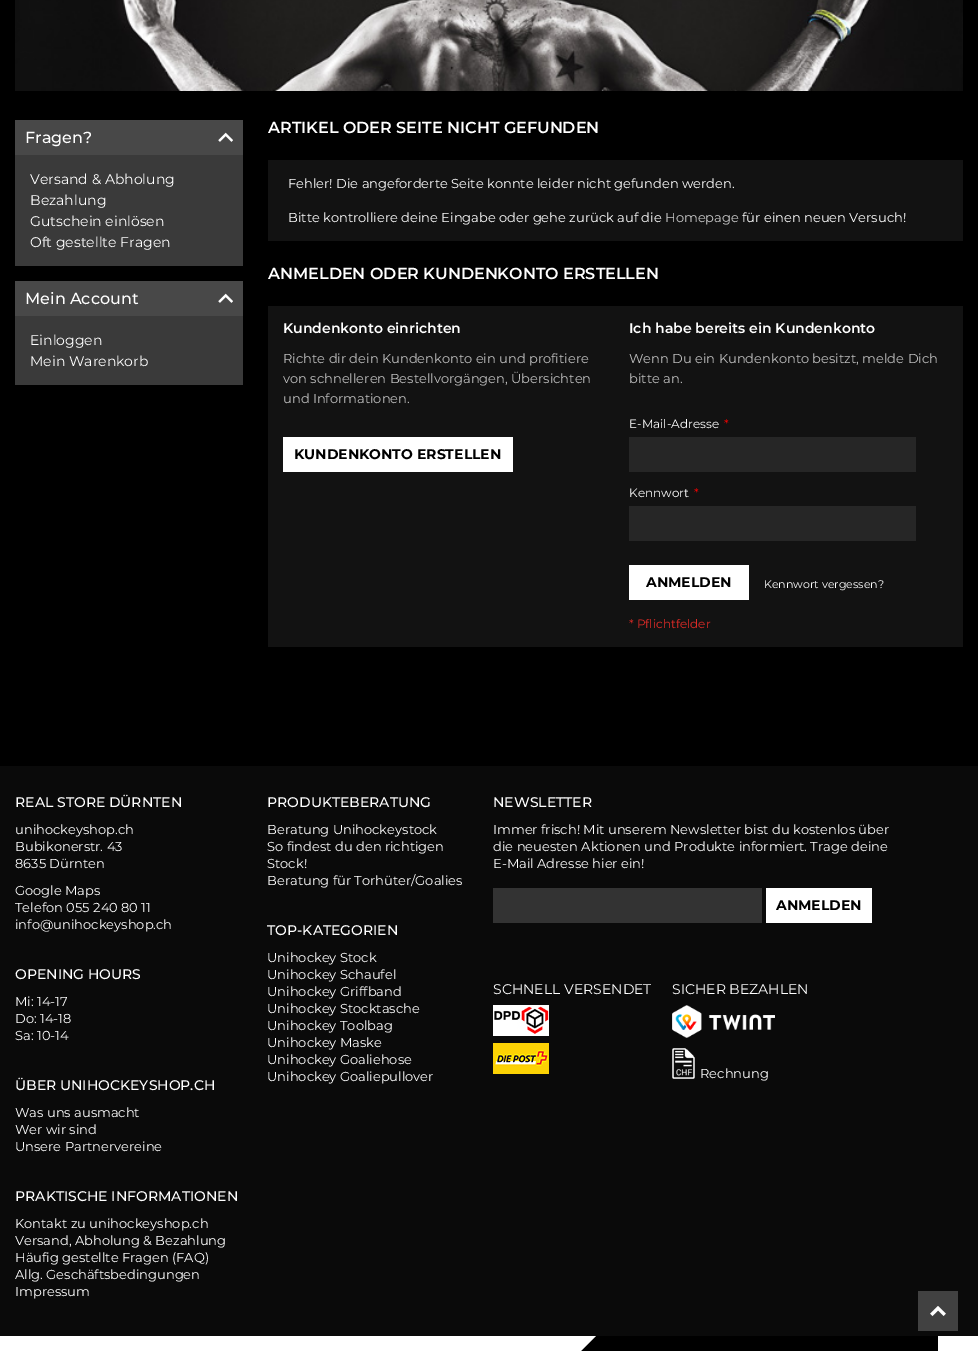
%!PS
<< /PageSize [978 1351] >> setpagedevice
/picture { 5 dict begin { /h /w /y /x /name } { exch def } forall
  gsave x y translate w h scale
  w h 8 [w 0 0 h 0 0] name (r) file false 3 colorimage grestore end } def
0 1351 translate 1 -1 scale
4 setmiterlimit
0 setgray
0 0 978 1351 rectfill
(img1.rgb) 15 0 948 91 picture
0.282 setgray
15 120 228 35 rectfill
/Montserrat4-Thin [16 0 0 -16 0 0] selectfont
1 setgray
25 143 moveto (Fragen?) show
(img2.rgb) 218 132 15 10 picture
0.227 setgray
15 155 228 111 rectfill
/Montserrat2-Thin [14 0 0 -14 0 0] selectfont
1 setgray
30 184 moveto (Versand & Abholung) show
30 205 moveto (Bezahlung) show
30 226 moveto (Gutschein einlösen) show
30 247 moveto (Oft gestellte Fragen) show
0.282 setgray
15 281 228 35 rectfill
/Montserrat4-Thin [16 0 0 -16 0 0] selectfont
1 setgray
25 304 moveto (Mein Account) show
(img2.rgb) 218 293 15 10 picture
0.227 setgray
15 316 228 69 rectfill
/Montserrat2-Thin [14 0 0 -14 0 0] selectfont
1 setgray
30 345 moveto (Einloggen) show
30 366 moveto (Mein Warenkorb) show
/Montserrat-Thin [16 0 0 -16 0 0] selectfont
268 133 moveto (ARTIKEL ODER SEITE NICHT GEFUNDEN) show
0.071 setgray
268 160 695 81 rectfill
/Montserrat2-Thin [13 0 0 -13 0 0] selectfont
1 setgray
288 188 moveto (Fehler! Die angeforderte Seite konnte leider nicht gefunden werden.) show
288 222 moveto (Bitte kontrolliere deine Eingabe oder gehe zurück auf die) show
0.8 setgray
665 222 moveto (Homepage) show
1 setgray
742 222 moveto (für einen neuen Versuch!) show
/Montserrat-Thin [16 0 0 -16 0 0] selectfont
268 279 moveto (ANMELDEN ODER KUNDENKONTO ERSTELLEN) show
0.071 setgray
268 306 695 341 rectfill
/Montserrat-Thin [14 0 0 -14 0 0] selectfont
1 setgray
283 333 moveto (Kundenkonto einrichten) show
/Montserrat2-Thin [13 0 0 -13 0 0] selectfont
0.749 setgray
283 363 moveto (Richte dir dein Kundenkonto ein und profitiere) show
283 383 moveto (von schnelleren Bestellvorgängen, Übersichten) show
283 403 moveto (und Informationen.) show
1 setgray
283 437 230 35 rectfill
/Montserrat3-Thin [14 0 0 -14 0 0] selectfont
0 setgray
294 459 moveto (KUNDENKONTO ERSTELLEN) show
/Montserrat-Thin [14 0 0 -14 0 0] selectfont
1 setgray
629 333 moveto (Ich habe bereits ein Kundenkonto) show
/Montserrat2-Thin [13 0 0 -13 0 0] selectfont
0.749 setgray
629 363 moveto (Wenn Du ein Kundenkonto besitzt, melde Dich) show
629 383 moveto (bitte an.) show
/Montserrat2-Thin [12 0 0 -12 0 0] selectfont
1 setgray
629 428 moveto (E-Mail-Adresse) show
1 0 0 setrgbcolor
724 428 moveto (*) show
0.149 setgray
629 437 287 35 rectfill
1 setgray
629 497 moveto (Kennwort) show
1 0 0 setrgbcolor
694 497 moveto (*) show
0.149 setgray
629 506 287 35 rectfill
1 setgray
629 565 120 35 rectfill
/Montserrat3-Thin [14 0 0 -14 0 0] selectfont
0 setgray
646 587 moveto (ANMELDEN) show
/Montserrat2-Thin [11 0 0 -11 0 0] selectfont
1 setgray
764 588 moveto (Kennwort vergessen?) show
/Montserrat2-Thin [12 0 0 -12 0 0] selectfont
0.878 0.169 0.153 setrgbcolor
629 628 moveto (* Pflichtfelder) show
0.039 setgray
0 766 978 570 rectfill
/Montserrat4-Thin [14 0 0 -14 0 0] selectfont
1 setgray
15 807 moveto (REAL STORE DÜRNTEN) show
/Montserrat2-Thin [13 0 0 -13 0 0] selectfont
15 834 moveto (unihockeyshop.ch) show
15 851 moveto (Bubikonerstr. 43) show
15 868 moveto (8635 Dürnten) show
15 895 moveto (Google Maps) show
15 912 moveto (Telefon 055 240 80 11) show
15 929 moveto (info@unihockeyshop.ch) show
/Montserrat4-Thin [14 0 0 -14 0 0] selectfont
15 979 moveto (OPENING HOURS) show
/Montserrat2-Thin [13 0 0 -13 0 0] selectfont
15 1006 moveto (Mi: 14-17) show
15 1023 moveto (Do: 14-18) show
15 1040 moveto (Sa: 10-14) show
/Montserrat4-Thin [14 0 0 -14 0 0] selectfont
15 1090 moveto (ÜBER UNIHOCKEYSHOP.CH) show
/Montserrat2-Thin [13 0 0 -13 0 0] selectfont
15 1117 moveto (Was uns ausmacht) show
15 1134 moveto (Wer wir sind) show
15 1151 moveto (Unsere Partnervereine) show
/Montserrat4-Thin [14 0 0 -14 0 0] selectfont
15 1201 moveto (PRAKTISCHE INFORMATIONEN) show
/Montserrat2-Thin [13 0 0 -13 0 0] selectfont
15 1228 moveto (Kontakt zu unihockeyshop.ch) show
15 1245 moveto (Versand, Abholung & Bezahlung) show
15 1262 moveto (Häufig gestellte Fragen \(FAQ\)) show
15 1279 moveto (Allg. Geschäftsbedingungen) show
15 1296 moveto (Impressum) show
/Montserrat4-Thin [14 0 0 -14 0 0] selectfont
267 807 moveto (PRODUKTEBERATUNG) show
/Montserrat2-Thin [13 0 0 -13 0 0] selectfont
267 834 moveto (Beratung Unihockeystock) show
267 851 moveto (So findest du den richtigen) show
267 868 moveto (Stock!) show
267 885 moveto (Beratung für Torhüter/Goalies) show
/Montserrat4-Thin [14 0 0 -14 0 0] selectfont
267 935 moveto (TOP-KATEGORIEN) show
/Montserrat2-Thin [13 0 0 -13 0 0] selectfont
267 962 moveto (Unihockey Stock) show
267 979 moveto (Unihockey Schaufel) show
267 996 moveto (Unihockey Griffband) show
267 1013 moveto (Unihockey Stocktasche) show
267 1030 moveto (Unihockey Toolbag) show
267 1047 moveto (Unihockey Maske) show
267 1064 moveto (Unihockey Goaliehose) show
267 1081 moveto (Unihockey Goaliepullover) show
/Montserrat4-Thin [14 0 0 -14 0 0] selectfont
493 807 moveto (NEWSLETTER) show
/Montserrat2-Thin [13 0 0 -13 0 0] selectfont
493 834 moveto (Immer frisch! Mit unserem Newsletter bist du kostenlos über) show
493 851 moveto (die neuesten Aktionen und Produkte informiert. Trage deine) show
493 868 moveto (E-Mail Adresse hier ein!) show
0.2 setgray
493 888 269 35 rectfill
1 setgray
766 888 106 35 rectfill
/Montserrat3-Thin [14 0 0 -14 0 0] selectfont
0 setgray
776 910 moveto (ANMELDEN) show
/Montserrat2-Thin [14 0 0 -14 0 0] selectfont
1 setgray
493 994 moveto (SCHNELL VERSENDET) show
(img3.rgb) 493 1005 56 31 picture
(img4.rgb) 493 1043 56 31 picture
672 994 moveto (SICHER BEZAHLEN) show
(img5.rgb) 672 1005 103 33 picture
(img6.rgb) 672 1048 23 31 picture
/Montserrat2-Thin [13 0 0 -13 0 0] selectfont
700 1078 moveto (Rechnung) show
0.255 setgray
918 1291 40 40 rectfill
(img7.rgb) 930 1306 16 11 picture
1 setgray
0 1336 978 15 rectfill
0 setgray
581 1336 357 15 rectfill
1 setgray
newpath 566 1336 moveto 596 1336 lineto 566 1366 lineto closepath fill
showpage
